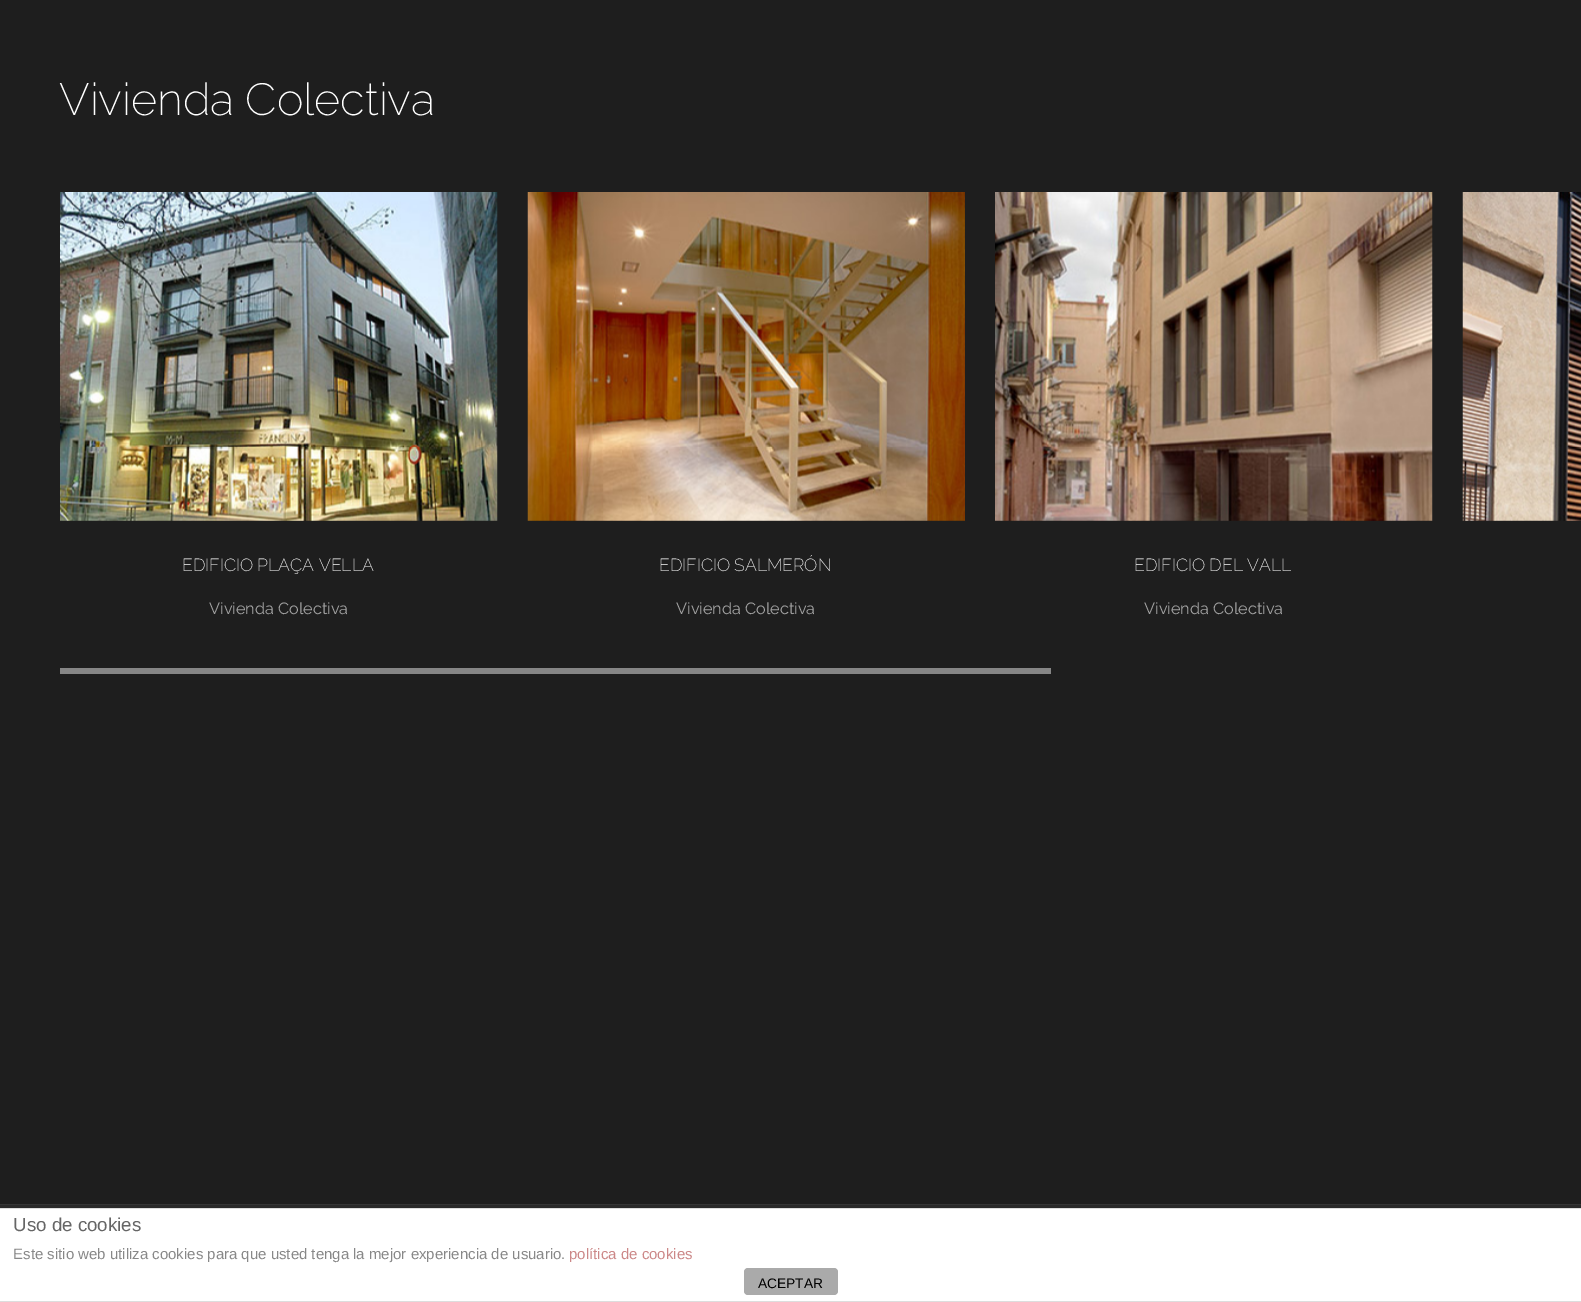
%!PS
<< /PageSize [1581 1302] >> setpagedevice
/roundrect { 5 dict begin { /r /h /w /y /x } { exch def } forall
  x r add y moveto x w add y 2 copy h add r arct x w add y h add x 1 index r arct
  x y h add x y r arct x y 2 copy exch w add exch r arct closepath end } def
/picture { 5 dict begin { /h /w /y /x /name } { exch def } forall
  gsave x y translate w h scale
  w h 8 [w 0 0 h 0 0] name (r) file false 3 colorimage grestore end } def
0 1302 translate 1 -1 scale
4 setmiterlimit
0.118 setgray
0 0 1581 1302 rectfill
/Raleway-ExtraLight [45 0 0 -45 0 0] selectfont
1 setgray
59 115 moveto (Vivienda Colectiva) show
(img1.rgb) 60 192 438 329 picture
/Raleway-Regular [16.25 0 0 -16.25 0 0] selectfont
0.537 0.604 0.639 setrgbcolor
116 229 moveto (0) show
/Raleway-ExtraLight [17.5 0 0 -17.5 0 0] selectfont
1 setgray
182 571 moveto (EDIFICIO PLAÇA VELLA) show
/Raleway-Regular [16.25 0 0 -16.25 0 0] selectfont
0.635 setgray
209 614 moveto (Vivienda Colectiva) show
(img2.rgb) 527 192 438 329 picture
/Raleway-ExtraLight [17.5 0 0 -17.5 0 0] selectfont
1 setgray
659 571 moveto (EDIFICIO SALMERÓN) show
/Raleway-Regular [16.25 0 0 -16.25 0 0] selectfont
0.635 setgray
676 614 moveto (Vivienda Colectiva) show
(img3.rgb) 995 192 438 329 picture
/Raleway-ExtraLight [17.5 0 0 -17.5 0 0] selectfont
1 setgray
1134 571 moveto (EDIFICIO DEL VALL) show
/Raleway-Regular [16.25 0 0 -16.25 0 0] selectfont
0.635 setgray
1144 614 moveto (Vivienda Colectiva) show
(img4.rgb) 1462 192 119 329 picture
0.525 setgray
60 668 991 6 rectfill
0.165 setgray
0 1205 1581 3 rectfill
0.208 setgray
0 1204 1581 1 rectfill
1 setgray
0 1209 1581 92 rectfill
0.867 setgray
0 1208 1581 1 rectfill
0 1301 1581 1 rectfill
/LiberationSans-Regular [18.75 0 0 -18.75 0 0] selectfont
0.4 setgray
13 1231 moveto (Uso de cookies) show
/LiberationSans-Regular [15 0 0 -15 0 0] selectfont
0.533 setgray
13 1259 moveto (Este sitio web utiliza cookies para que usted tenga la mejor experiencia de usuario.) show
0.8 0.533 0.533 setrgbcolor
569 1259 moveto (política de cookies) show
0.667 setgray
744 1268 94 27 4 roundrect fill
/LiberationSans-Regular [13.75 0 0 -13.75 0 0] selectfont
0 setgray
758 1288 moveto (ACEPTAR) show
showpage
